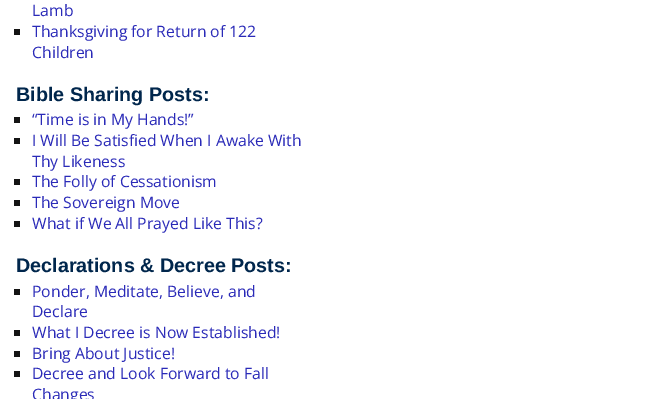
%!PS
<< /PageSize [671 399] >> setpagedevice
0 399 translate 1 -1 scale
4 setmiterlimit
1 setgray
0 0 671 399 rectfill
/OpenSans-Regular [15.75 0 0 -15.75 0 0] selectfont
0.165 0.165 0.722 setrgbcolor
32 16 moveto (Lamb) show
0.078 setgray
14 29 6 6 rectfill
0.165 0.165 0.722 setrgbcolor
32 37 moveto (Thanksgiving for Return of 122) show
32 58 moveto (Children) show
/LiberationSans-Bold [19.75 0 0 -19.75 0 0] selectfont
0 0.149 0.298 setrgbcolor
16 101 moveto (Bible Sharing Posts:) show
0.078 setgray
14 117 6 6 rectfill
/OpenSans-Regular [15.75 0 0 -15.75 0 0] selectfont
0.165 0.165 0.722 setrgbcolor
32 125 moveto (“Time is in My Hands!”) show
0.078 setgray
14 138 6 6 rectfill
0.165 0.165 0.722 setrgbcolor
32 146 moveto (I Will Be Satisfied When I Awake With) show
32 167 moveto (Thy Likeness) show
0.078 setgray
14 179 6 6 rectfill
0.165 0.165 0.722 setrgbcolor
32 187 moveto (The Folly of Cessationism) show
0.078 setgray
14 200 6 6 rectfill
0.165 0.165 0.722 setrgbcolor
32 208 moveto (The Sovereign Move) show
0.078 setgray
14 221 6 6 rectfill
0.165 0.165 0.722 setrgbcolor
32 229 moveto (What if We All Prayed Like This?) show
/LiberationSans-Bold [19.75 0 0 -19.75 0 0] selectfont
0 0.149 0.298 setrgbcolor
16 272 moveto (Declarations & Decree Posts:) show
0.078 setgray
14 289 6 6 rectfill
/OpenSans-Regular [15.75 0 0 -15.75 0 0] selectfont
0.165 0.165 0.722 setrgbcolor
32 297 moveto (Ponder, Meditate, Believe, and) show
32 317 moveto (Declare) show
0.078 setgray
14 330 6 6 rectfill
0.165 0.165 0.722 setrgbcolor
32 338 moveto (What I Decree is Now Established!) show
0.078 setgray
14 351 6 6 rectfill
0.165 0.165 0.722 setrgbcolor
32 359 moveto (Bring About Justice!) show
0.078 setgray
14 371 6 6 rectfill
0.165 0.165 0.722 setrgbcolor
32 379 moveto (Decree and Look Forward to Fall) show
32 400 moveto (Changes) show
showpage
